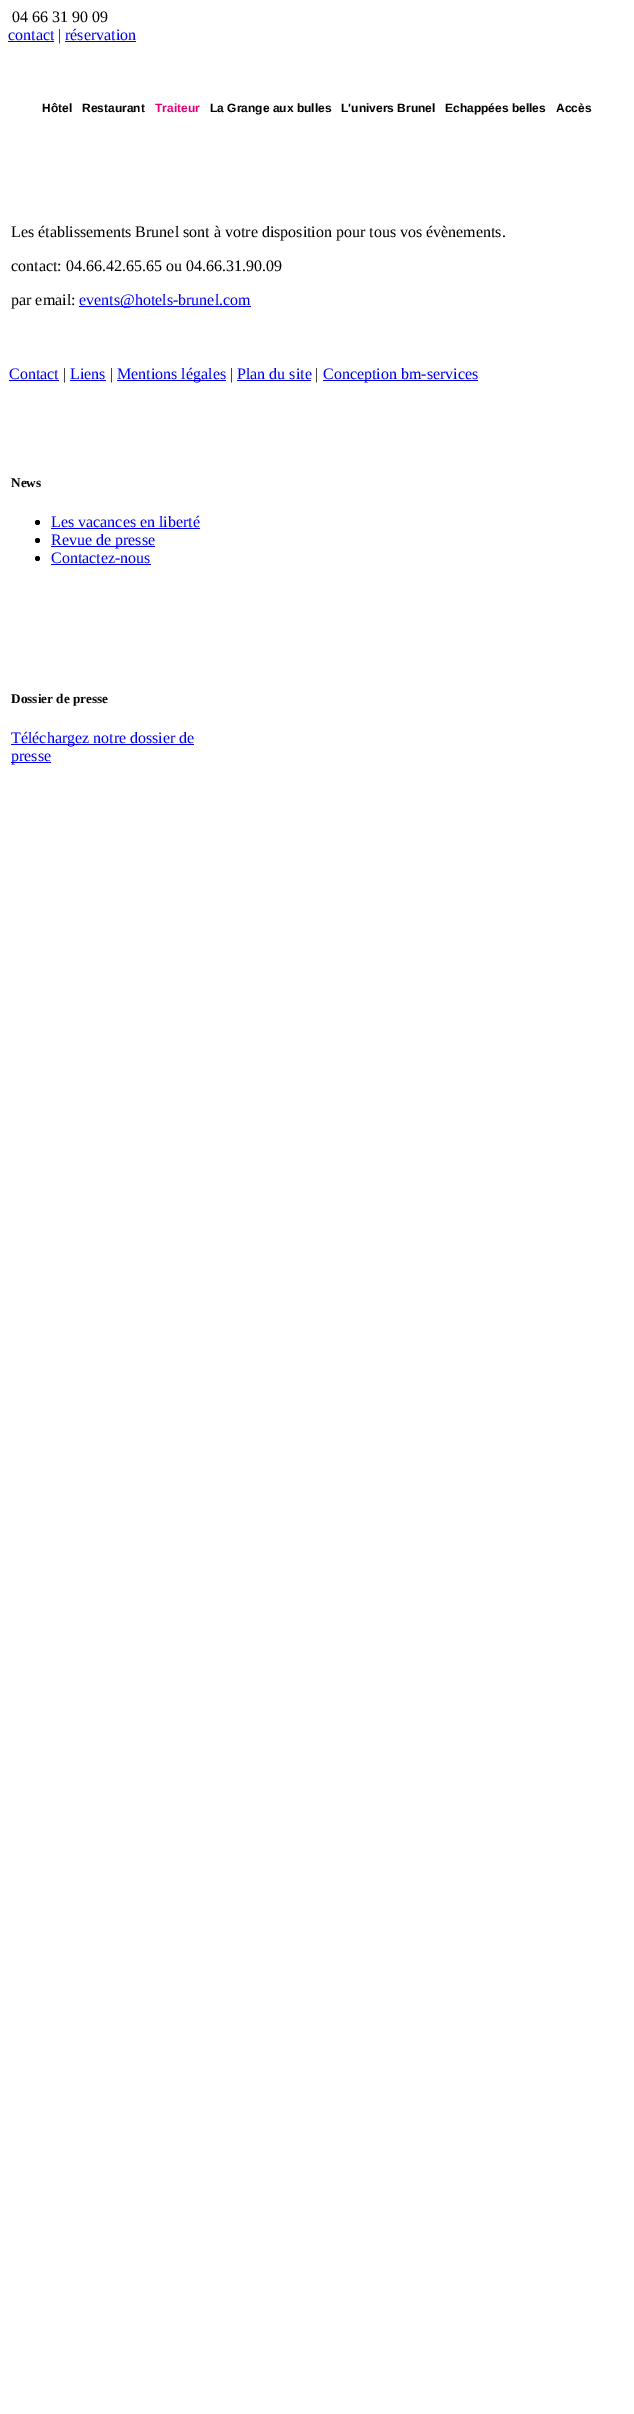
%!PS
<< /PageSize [634 2414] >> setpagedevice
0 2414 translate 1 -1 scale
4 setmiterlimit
1 setgray
0 0 634 2414 rectfill
/LiberationSerif-Regular [16 0 0 -16 0 0] selectfont
0 setgray
12 22 moveto (04 66 31 90 09) show
0 0 0.933 setrgbcolor
8 40 moveto (contact) show
8 41 46 1 rectfill
0 setgray
58 40 moveto (|) show
0 0 0.933 setrgbcolor
65 40 moveto (réservation) show
65 41 71 1 rectfill
/LiberationSans-Bold [12 0 0 -12 0 0] selectfont
0 setgray
42 112 moveto (Hôtel) show
82 112 moveto (Restaurant) show
0.886 0 0.478 setrgbcolor
155 112 moveto (Traiteur) show
0 setgray
210 112 moveto (La Grange aux bulles) show
341 112 moveto (L'univers Brunel) show
445 112 moveto (Echappées belles) show
556 112 moveto (Accès) show
/LiberationSerif-Regular [16 0 0 -16 0 0] selectfont
11 237 moveto (Les établissements Brunel sont à votre disposition pour tous vos évènements.) show
11 271 moveto (contact: 04.66.42.65.65 ou 04.66.31.90.09) show
11 305 moveto (par email:) show
0 0 0.933 setrgbcolor
79 306 172 1 rectfill
79 305 moveto (events@hotels-brunel.com) show
9 379 moveto (Contact) show
9 380 50 1 rectfill
0 setgray
63 379 moveto (|) show
0 0 0.933 setrgbcolor
70 379 moveto (Liens) show
70 380 36 1 rectfill
0 setgray
110 379 moveto (|) show
0 0 0.933 setrgbcolor
117 380 109 1 rectfill
117 379 moveto (Mentions légales) show
0 setgray
230 379 moveto (|) show
0 0 0.933 setrgbcolor
237 379 moveto (Plan du site) show
237 380 74 1 rectfill
0 setgray
315 379 moveto (|) show
0 0 0.933 setrgbcolor
323 380 155 1 rectfill
323 379 moveto (Conception bm-services) show
/LiberationSerif-Bold [13.25 0 0 -13.25 0 0] selectfont
0 setgray
11 487 moveto (News) show
newpath 37.5 522.5 2.5 0 360 arc closepath fill
/LiberationSerif-Regular [16 0 0 -16 0 0] selectfont
0 0 0.933 setrgbcolor
51 527 moveto (Les vacances en liberté) show
51 528 149 1 rectfill
0 setgray
newpath 37.5 540.5 2.5 0 360 arc closepath fill
0 0 0.933 setrgbcolor
51 546 104 1 rectfill
51 545 moveto (Revue de presse) show
0 setgray
newpath 37.5 558.5 2.5 0 360 arc closepath fill
0 0 0.933 setrgbcolor
51 563 moveto (Contactez-nous) show
51 564 100 1 rectfill
/LiberationSerif-Bold [13.25 0 0 -13.25 0 0] selectfont
0 setgray
11 703 moveto (Dossier de presse) show
0 0 0.933 setrgbcolor
11 744 183 1 rectfill
/LiberationSerif-Regular [16 0 0 -16 0 0] selectfont
11 743 moveto (Téléchargez notre dossier de) show
11 762 40 1 rectfill
11 761 moveto (presse) show
showpage
